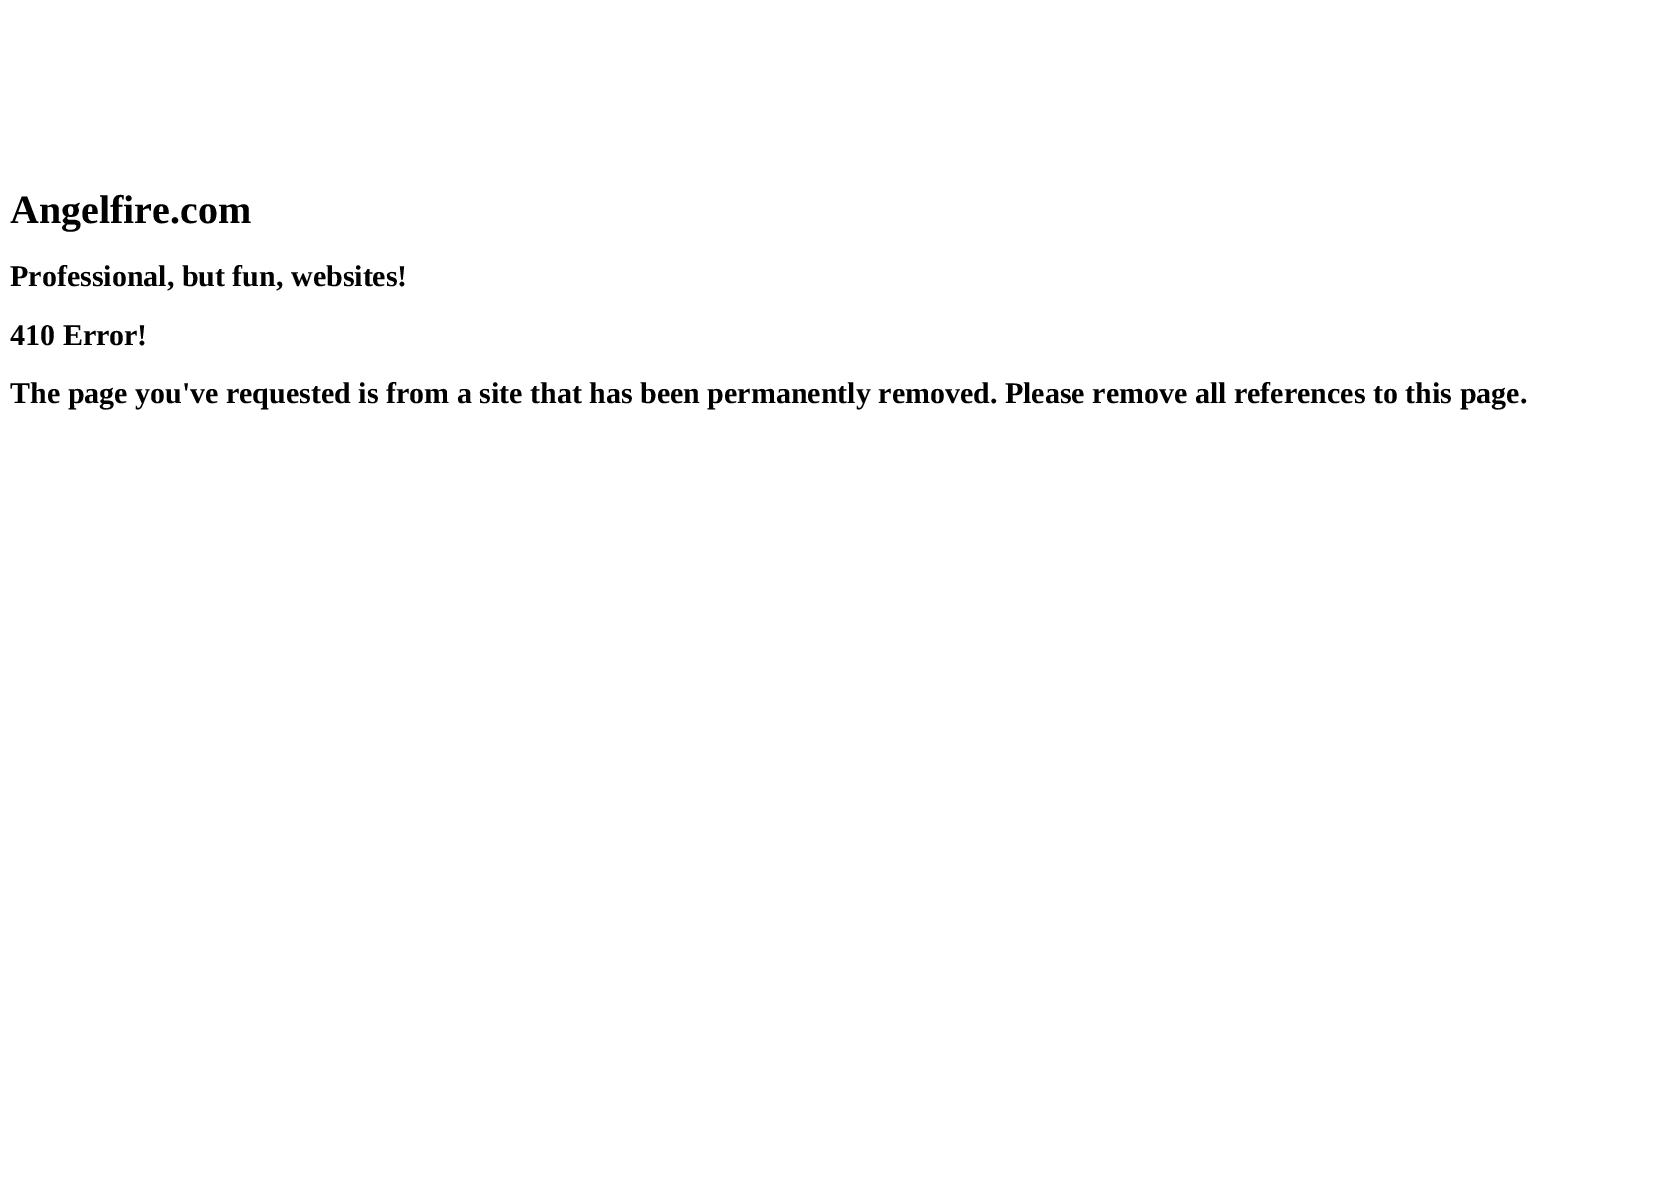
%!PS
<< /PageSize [1670 1194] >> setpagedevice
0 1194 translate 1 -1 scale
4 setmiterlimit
1 setgray
0 0 1670 1194 rectfill
/LiberationSerif-Bold [40 0 0 -40 0 0] selectfont
0 setgray
10 223 moveto (Angelfire.com) show
/LiberationSerif-Bold [30 0 0 -30 0 0] selectfont
10 286 moveto (Professional, but fun, websites!) show
10 345 moveto (410 Error!) show
10 403 moveto (The page you've requested is from a site that has been permanently removed. Please remove all references to this page.) show
showpage
